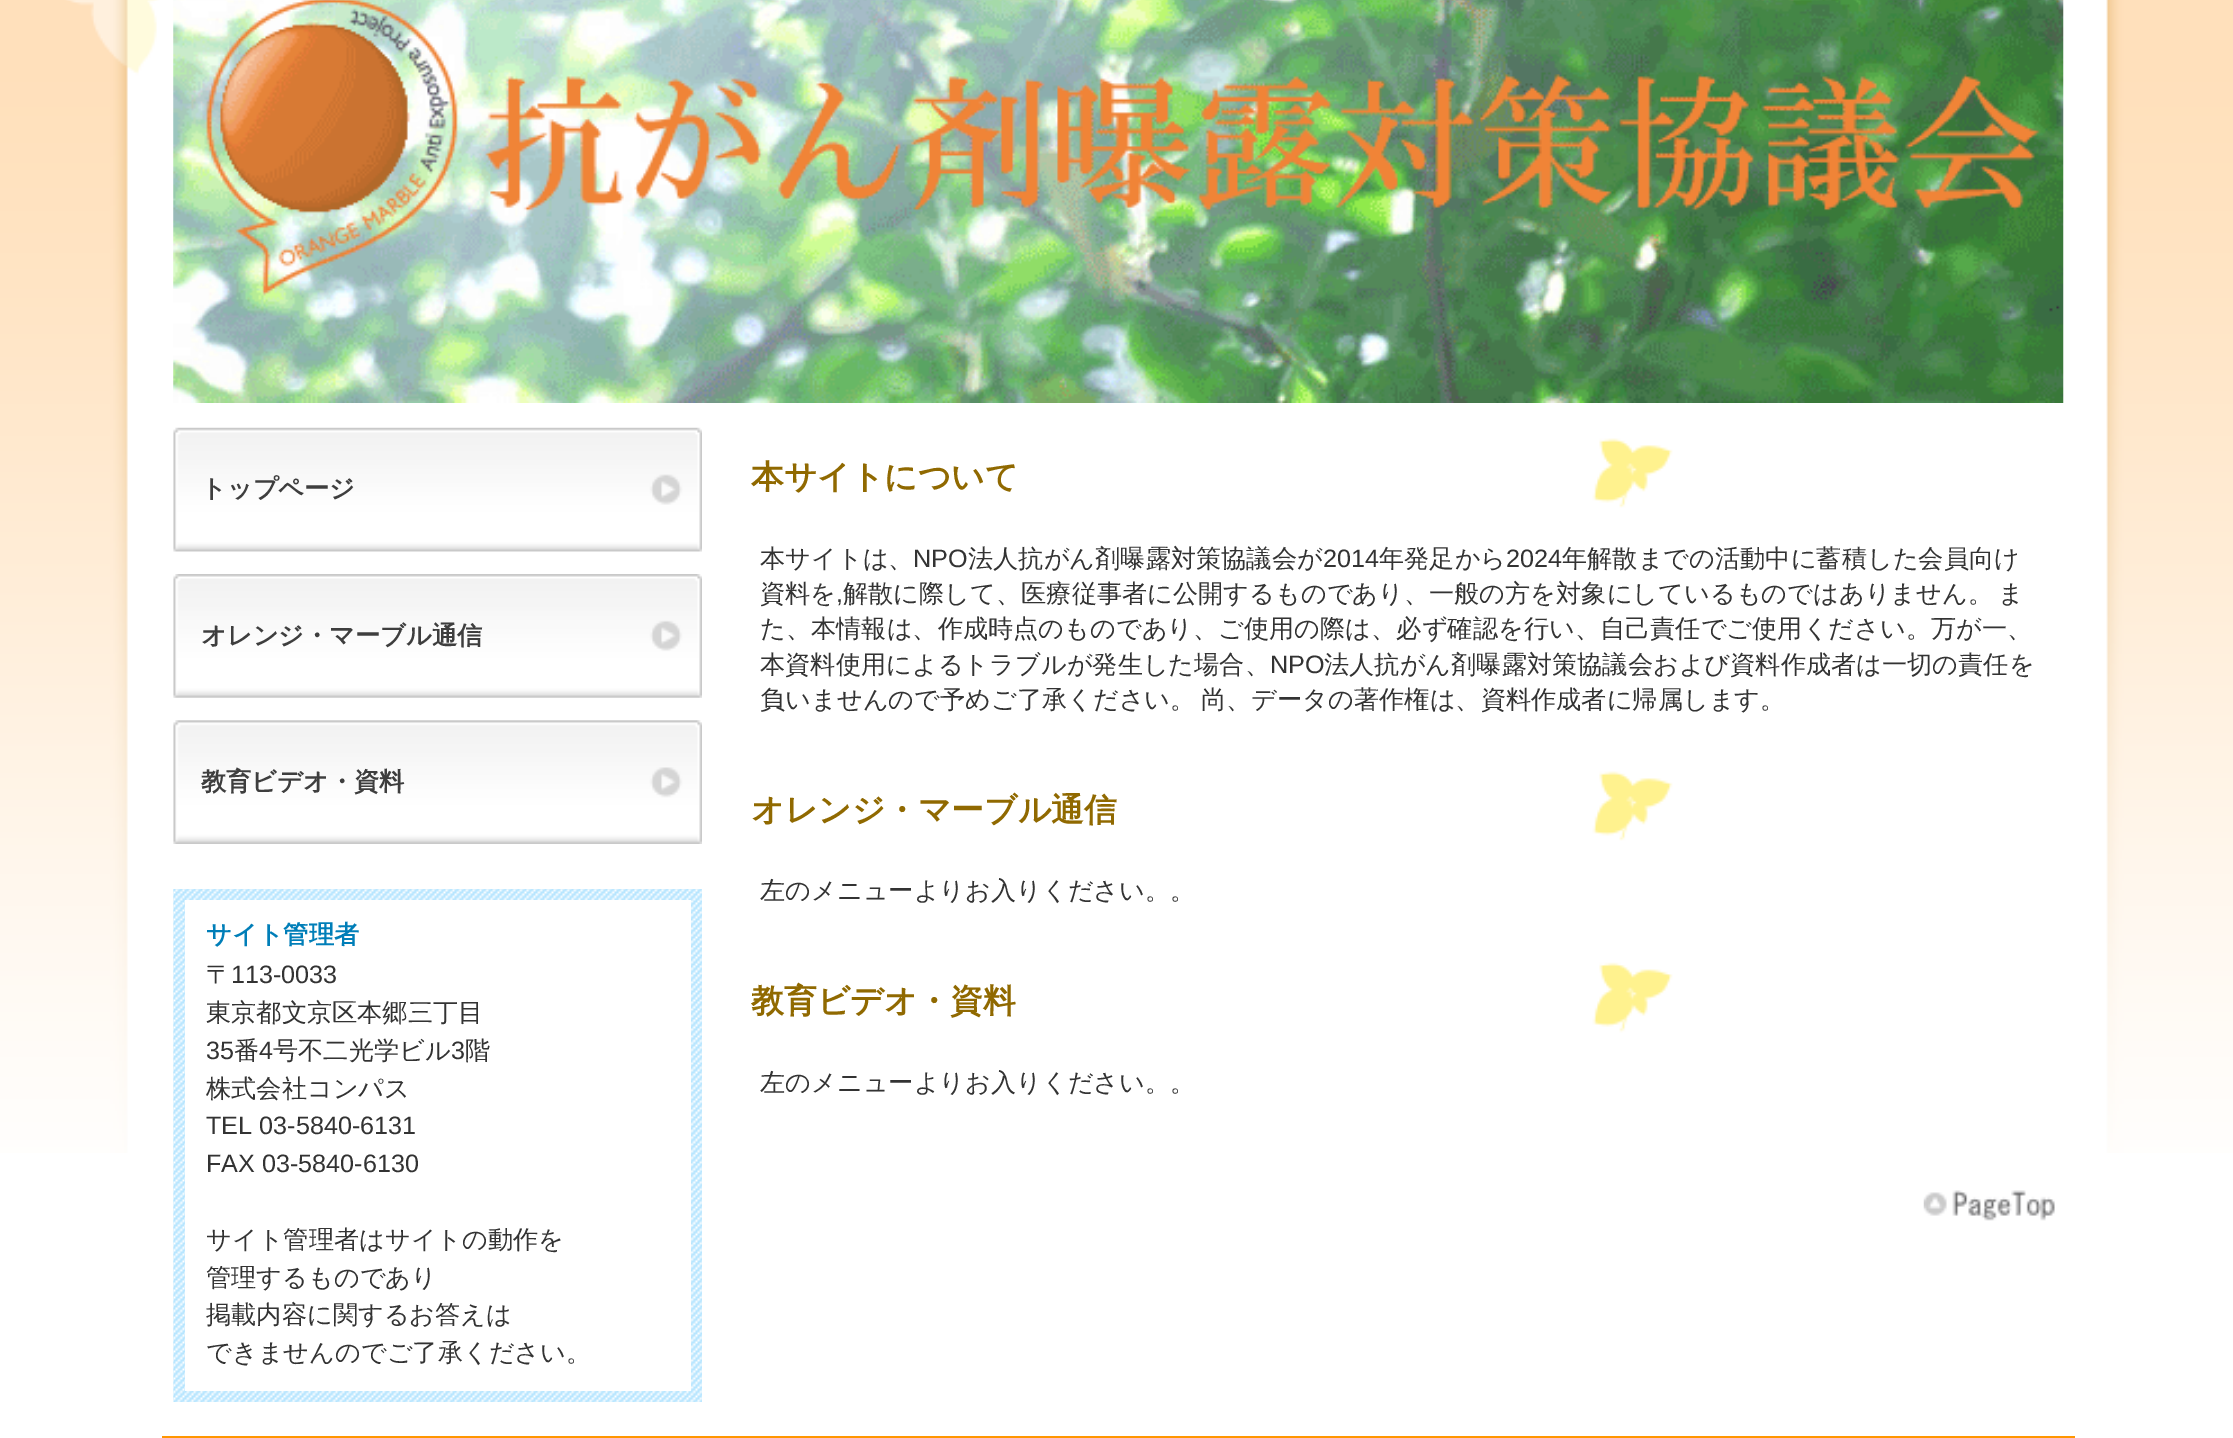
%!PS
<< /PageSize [2233 1438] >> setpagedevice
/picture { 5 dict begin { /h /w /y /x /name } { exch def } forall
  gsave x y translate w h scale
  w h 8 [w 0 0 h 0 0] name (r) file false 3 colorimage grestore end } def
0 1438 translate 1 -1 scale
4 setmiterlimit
1 setgray
0 0 2233 1438 rectfill
(img1.rgb) 0 0 2233 1153 picture
(img2.rgb) 173 427 529 125 picture
/WenQuanYiZenHei-Bold [25.2 0 0 -25.2 0 0] selectfont
0.243 setgray
201 497 moveto (トップページ) show
(img3.rgb) 173 574 529 124 picture
201 644 moveto (オレンジ・マーブル通信) show
(img4.rgb) 173 720 529 124 picture
201 790 moveto (教育ビデオ・資料) show
(img5.rgb) 173 889 529 513 picture
1 setgray
185 900 506 491 rectfill
0 0.494 0.722 setrgbcolor
206 943 moveto (サイト管理者) show
/WenQuanYiZenHei-Medium [25.2 0 0 -25.2 0 0] selectfont
0.2 setgray
206 983 moveto (〒) show
/LiberationSans-Regular [25.2 0 0 -25.2 0 0] selectfont
231 983 moveto (113-0033) show
/WenQuanYiZenHei-Medium [25.2 0 0 -25.2 0 0] selectfont
206 1021 moveto (東京都文京区本郷三丁目) show
/LiberationSans-Regular [25.2 0 0 -25.2 0 0] selectfont
206 1059 moveto (35) show
/WenQuanYiZenHei-Medium [25.2 0 0 -25.2 0 0] selectfont
234 1059 moveto (番) show
/LiberationSans-Regular [25.2 0 0 -25.2 0 0] selectfont
259 1059 moveto (4) show
/WenQuanYiZenHei-Medium [25.2 0 0 -25.2 0 0] selectfont
273 1059 moveto (号不二光学ビル) show
/LiberationSans-Regular [25.2 0 0 -25.2 0 0] selectfont
451 1059 moveto (3) show
/WenQuanYiZenHei-Medium [25.2 0 0 -25.2 0 0] selectfont
465 1059 moveto (階) show
206 1097 moveto (株式会社コンパス) show
/LiberationSans-Regular [25.2 0 0 -25.2 0 0] selectfont
206 1134 moveto (TEL 03-5840-6131) show
206 1172 moveto (FAX 03-5840-6130) show
/WenQuanYiZenHei-Medium [25.2 0 0 -25.2 0 0] selectfont
206 1248 moveto (サイト管理者はサイトの動作を) show
206 1286 moveto (管理するものであり) show
206 1323 moveto (掲載内容に関するお答えは) show
206 1361 moveto (できませんのでご了承ください。) show
(img6.rgb) 173 0 1891 403 picture
(img7.rgb) 1592 438 81 70 picture
/WenQuanYiZenHei-Bold [32.75 0 0 -32.75 0 0] selectfont
0.565 0.412 0 setrgbcolor
751 488 moveto (本サイトについて) show
/WenQuanYiZenHei-Medium [25.2 0 0 -25.2 0 0] selectfont
0.2 setgray
760 567 moveto (本サイトは、) show
/LiberationSans-Regular [25.2 0 0 -25.2 0 0] selectfont
913 567 moveto (NPO) show
/WenQuanYiZenHei-Medium [25.2 0 0 -25.2 0 0] selectfont
968 567 moveto (法人抗がん剤曝露対策協議会が) show
/LiberationSans-Regular [25.2 0 0 -25.2 0 0] selectfont
1323 567 moveto (2014) show
/WenQuanYiZenHei-Medium [25.2 0 0 -25.2 0 0] selectfont
1379 567 moveto (年発足から) show
/LiberationSans-Regular [25.2 0 0 -25.2 0 0] selectfont
1506 567 moveto (2024) show
/WenQuanYiZenHei-Medium [25.2 0 0 -25.2 0 0] selectfont
1562 567 moveto (年解散までの活動中に蓄積した会員向け) show
760 602 moveto (資料を) show
/LiberationSans-Regular [25.2 0 0 -25.2 0 0] selectfont
836 602 moveto (,) show
/WenQuanYiZenHei-Medium [25.2 0 0 -25.2 0 0] selectfont
843 602 moveto -2 0 32 (解散に際して、医療従事者に公開するものであり、一般の方を対象にしているものではありません。 ま) widthshow
760 637 moveto (た、本情報は、作成時点のものであり、ご使用の際は、必ず確認を行い、自己責任でご使用ください。万が一、) show
760 673 moveto (本資料使用によるトラブルが発生した場合、) show
/LiberationSans-Regular [25.2 0 0 -25.2 0 0] selectfont
1270 673 moveto (NPO) show
/WenQuanYiZenHei-Medium [25.2 0 0 -25.2 0 0] selectfont
1324 673 moveto (法人抗がん剤曝露対策協議会および資料作成者は一切の責任を) show
760 708 moveto -2 0 32 (負いませんので予めご了承ください。 尚、データの著作権は、資料作成者に帰属します。) widthshow
(img7.rgb) 1592 771 81 70 picture
/WenQuanYiZenHei-Bold [32.75 0 0 -32.75 0 0] selectfont
0.565 0.412 0 setrgbcolor
751 821 moveto (オレンジ・マーブル通信) show
/WenQuanYiZenHei-Medium [25.2 0 0 -25.2 0 0] selectfont
0.2 setgray
760 899 moveto (左のメニューよりお入りください。。) show
(img8.rgb) 1592 962 81 71 picture
/WenQuanYiZenHei-Bold [32.75 0 0 -32.75 0 0] selectfont
0.565 0.412 0 setrgbcolor
751 1012 moveto (教育ビデオ・資料) show
/WenQuanYiZenHei-Medium [25.2 0 0 -25.2 0 0] selectfont
0.2 setgray
760 1091 moveto (左のメニューよりお入りください。。) show
(img9.rgb) 1923 1190 132 31 picture
1 0.588 0 setrgbcolor
162 1436 1913 2 rectfill
showpage
